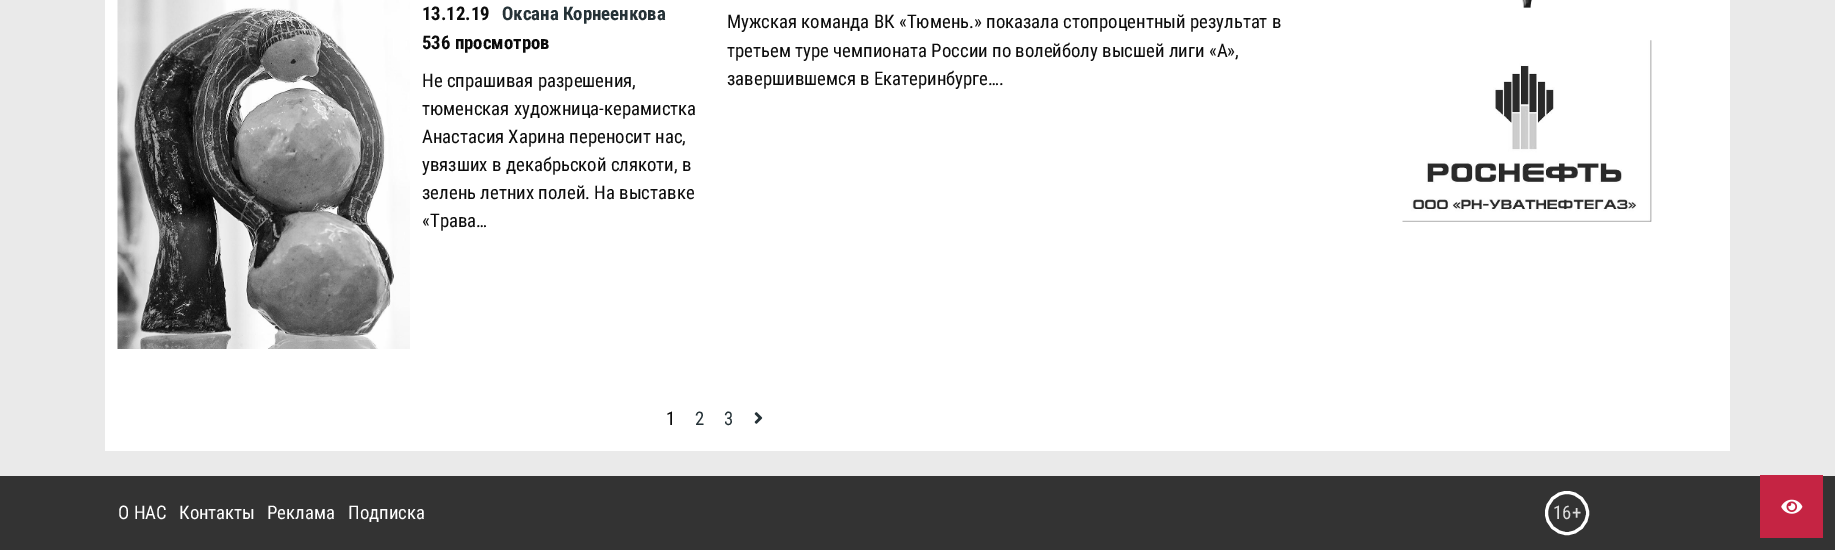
%!PS
<< /PageSize [1835 550] >> setpagedevice
/picture { 5 dict begin { /h /w /y /x /name } { exch def } forall
  gsave x y translate w h scale
  w h 8 [w 0 0 h 0 0] name (r) file false 3 colorimage grestore end } def
0 550 translate 1 -1 scale
4 setmiterlimit
0.918 setgray
0 0 1835 550 rectfill
1 setgray
105 0 1625 451 rectfill
(img1.rgb) 117 0 293 349 picture
/RobotoCondensed-Bold [18.75 0 0 -18.75 0 0] selectfont
0.047 setgray
422 20 moveto (13.12.19) show
0.145 0.196 0.216 setrgbcolor
502 20 moveto (Оксана Корнеенкова) show
0.047 setgray
422 49 moveto (536 просмотров) show
/RobotoCondensed-Regular [18.75 0 0 -18.75 0 0] selectfont
422 87 moveto (Не спрашивая разрешения,) show
422 115 moveto (тюменская художница-керамистка) show
422 143 moveto (Анастасия Харина переносит нас,) show
422 171 moveto (увязших в декабрьской слякоти, в) show
422 199 moveto (зелень летних полей. На выставке) show
422 227 moveto («Трава…) show
727 28 moveto (Мужская команда ВК «Тюмень.» показала стопроцентный результат в) show
727 57 moveto (третьем туре чемпионата России по волейболу высшей лиги «А»,) show
727 85 moveto (завершившемся в Eкатеринбурге….) show
666 425 moveto (1) show
0.145 0.196 0.216 setrgbcolor
695 425 moveto (2) show
724 425 moveto (3) show
(img2.rgb) 754 412 9 12 picture
(img3.rgb) 1522 0 10 8 picture
(img4.rgb) 1402 40 250 182 picture
0.2 setgray
0 476 1835 74 rectfill
1 setgray
118 519 moveto (О НАС) show
179 519 moveto (Контакты) show
267 519 moveto (Реклама) show
348 519 moveto (Подписка) show
3 setlinewidth
newpath 1567 513 20.5 0 360 arc closepath stroke
0.867 setgray
1553 519 moveto (16+) show
0.773 0.141 0.263 setrgbcolor
1760 475 63 63 rectfill
(img5.rgb) 1781 499 22 15 picture
showpage
